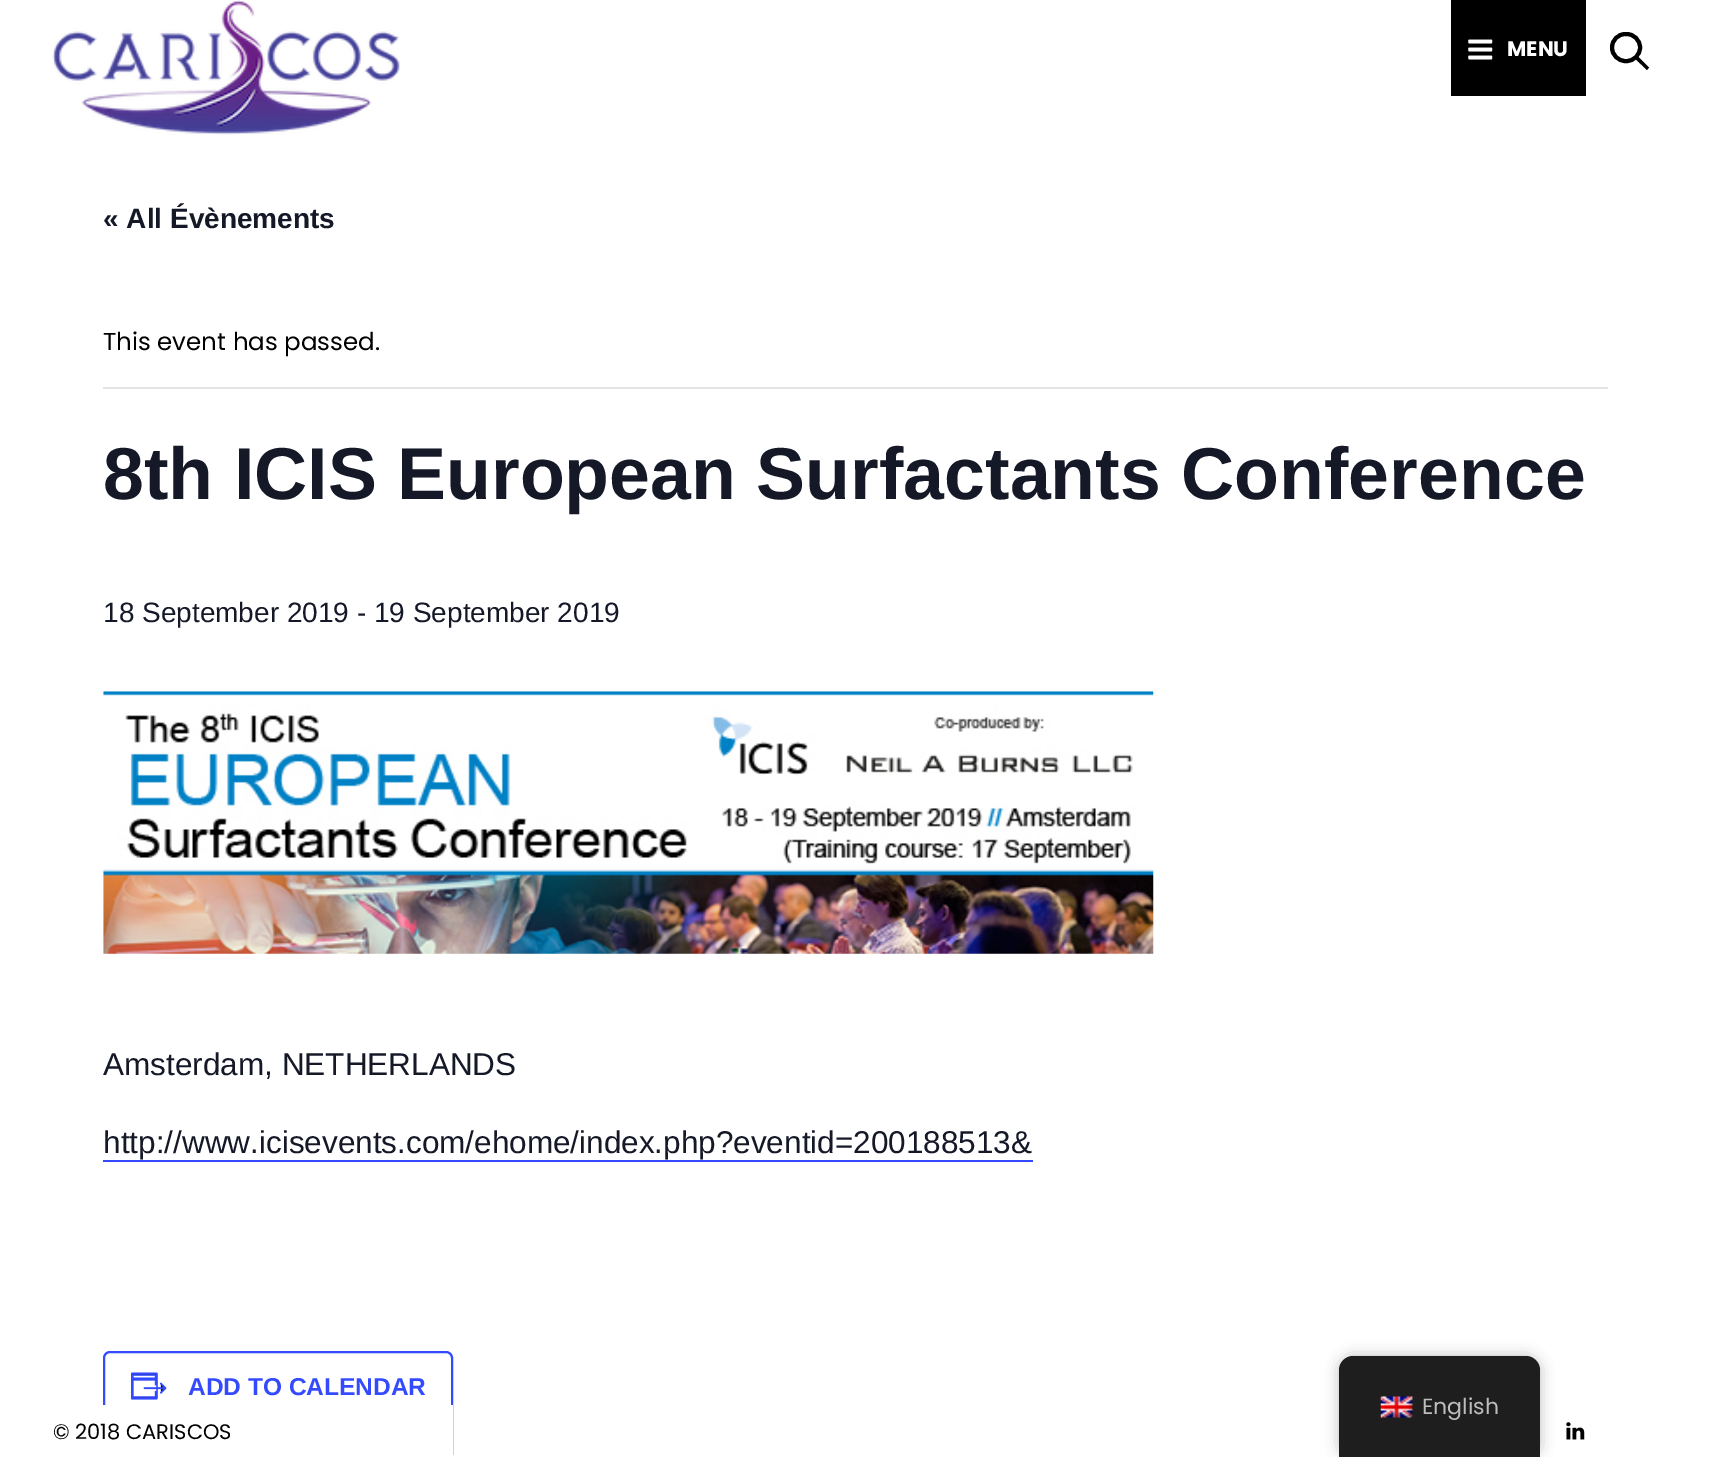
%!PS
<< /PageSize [1711 1457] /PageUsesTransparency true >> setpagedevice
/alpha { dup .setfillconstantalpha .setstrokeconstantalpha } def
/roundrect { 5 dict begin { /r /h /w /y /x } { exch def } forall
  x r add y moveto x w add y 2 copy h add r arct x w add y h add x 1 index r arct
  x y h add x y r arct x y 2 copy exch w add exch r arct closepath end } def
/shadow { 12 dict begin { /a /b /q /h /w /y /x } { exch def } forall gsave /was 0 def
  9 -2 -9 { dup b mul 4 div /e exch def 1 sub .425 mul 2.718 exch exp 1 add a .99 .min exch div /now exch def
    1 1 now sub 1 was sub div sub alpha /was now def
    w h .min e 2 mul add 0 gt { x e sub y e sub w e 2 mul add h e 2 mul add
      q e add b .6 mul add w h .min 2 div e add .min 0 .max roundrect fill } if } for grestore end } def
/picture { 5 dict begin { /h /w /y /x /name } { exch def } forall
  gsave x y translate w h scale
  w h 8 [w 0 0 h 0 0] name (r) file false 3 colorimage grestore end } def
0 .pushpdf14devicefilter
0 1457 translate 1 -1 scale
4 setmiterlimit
1 setgray
0 0 1711 1457 rectfill
(img1.rgb) 52 0 348 135 picture
0 setgray
1451 0 135 96 rectfill
(img2.rgb) 1468 39 25 21 picture
/Poppins-Bold [21 0 0 -21 0 0] selectfont
1 setgray
1507 56 moveto (MENU) show
0 setgray
4 setlinewidth
1612 34 28 27 13.5 roundrect stroke
newpath 1638 56.5 moveto 1649 67.5 lineto 1647 70 lineto 1635.5 59 lineto closepath fill
/LiberationSans-Bold [28 0 0 -28 0 0] selectfont
0.078 0.094 0.153 setrgbcolor
103 228 moveto (« All Évènements) show
0.894 setgray
103 387 1505 2 rectfill
/Poppins-Regular [24.5 0 0 -24.5 0 0] selectfont
0 setgray
103 350 moveto (This event has passed.) show
/LiberationSans-Bold [73.5 0 0 -73.5 0 0] selectfont
0.078 0.094 0.153 setrgbcolor
103 499 moveto (8th ICIS European Surfactants Conference) show
/LiberationSans-Regular [28 0 0 -28 0 0] selectfont
103 622 moveto (18 September 2019 - 19 September 2019) show
(img3.rgb) 103 691 1051 263 picture
/LiberationSans-Regular [31.5 0 0 -31.5 0 0] selectfont
103 1075 moveto (Amsterdam, NETHERLANDS) show
103 1153 moveto (http://www.icisevents.com/ehome/index.php?eventid=200188513&) show
0.2 0.29 1 setrgbcolor
103 1160 930 2 rectfill
2 setlinewidth
104 1352 348 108 6 roundrect stroke
(img4.rgb) 131 1372 36 28 picture
/LiberationSans-Bold [24.5 0 0 -24.5 0 0] selectfont
188 1395 moveto (ADD TO CALENDAR) show
1 setgray
103 1405 350 52 rectfill
/Poppins-Regular [21 0 0 -21 0 0] selectfont
0 setgray
53 1439 moveto (© 2018 CARISCOS) show
(img5.rgb) 1566 1422 19 18 picture
1339 1356 201 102 14 7 0.25 shadow
0.118 setgray
newpath 1353 1356 moveto 1526 1356 lineto 1533.5 1356 1540 1362.5 1540 1370 curveto 1540 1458 lineto 1339 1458 lineto 1339 1370 lineto 1339 1362.5 1345.5 1356 1353 1356 curveto closepath fill
(img6.rgb) 1380 1396 33 22 picture
/Poppins-Regular [22 0 0 -22 0 0] selectfont
0.741 setgray
1422 1414 moveto (English) show
.poppdf14devicefilter showpage
